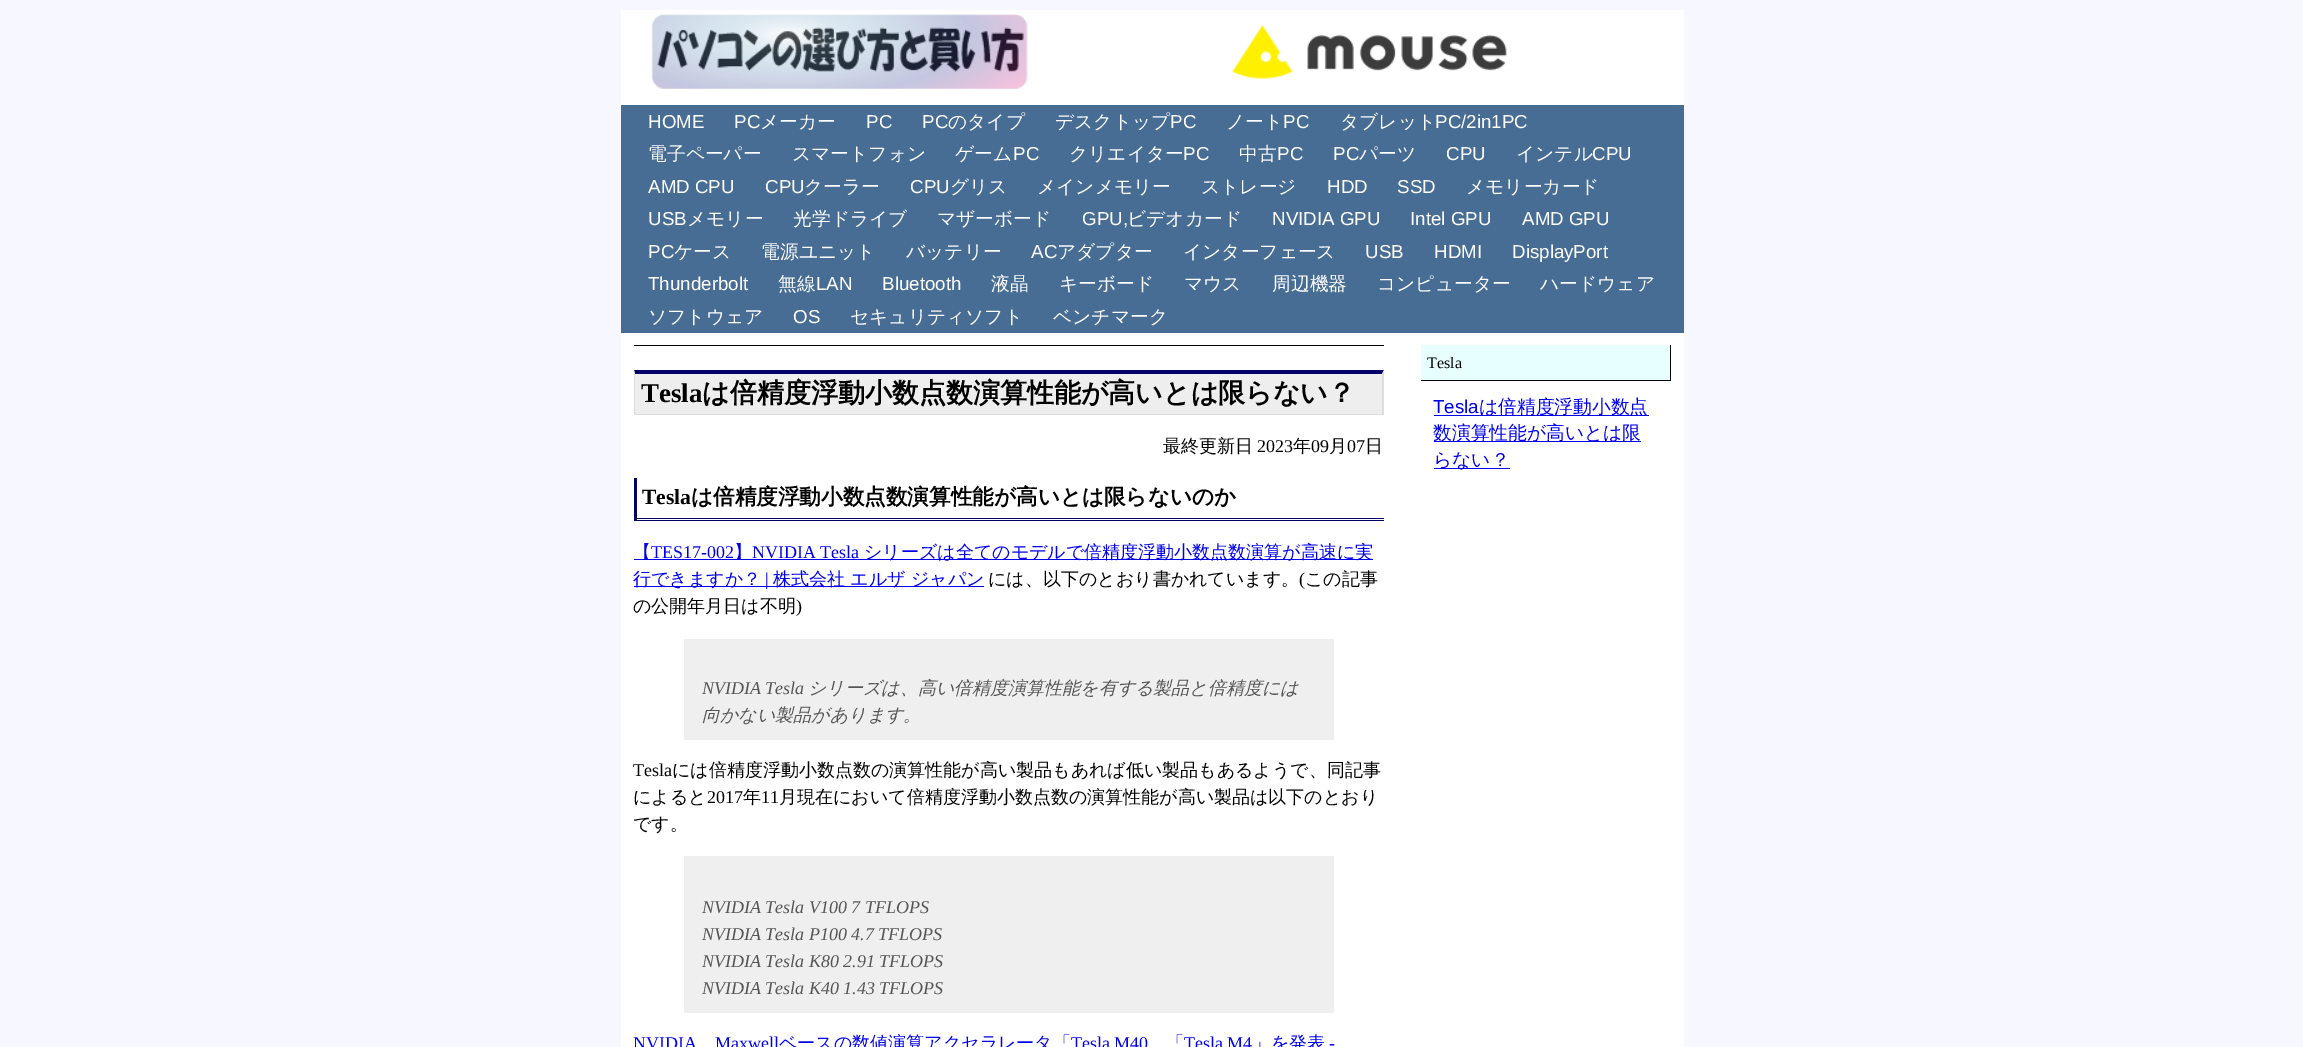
%!PS
<< /PageSize [2303 1047] >> setpagedevice
/picture { 5 dict begin { /h /w /y /x /name } { exch def } forall
  gsave x y translate w h scale
  w h 8 [w 0 0 h 0 0] name (r) file false 3 colorimage grestore end } def
0 1047 translate 1 -1 scale
4 setmiterlimit
0.969 0.969 1 setrgbcolor
0 0 2303 1047 rectfill
1 setgray
621 10 1063 1037 rectfill
(img1.rgb) 651 13 377 76 picture
(img2.rgb) 1232 25 275 54 picture
0.282 0.427 0.58 setrgbcolor
621 105 1063 228 rectfill
/LiberationSans-Regular [18.75 0 0 -18.75 0 0] selectfont
1 setgray
648 128 moveto (HOME) show
734 128 moveto (PC) show
/WenQuanYiZenHei-Medium [18.75 0 0 -18.75 0 0] selectfont
760 128 moveto (メーカー) show
/LiberationSans-Regular [18.75 0 0 -18.75 0 0] selectfont
866 128 moveto (PC) show
922 128 moveto (PC) show
/WenQuanYiZenHei-Medium [18.75 0 0 -18.75 0 0] selectfont
948 128 moveto (のタイプ) show
1055 128 moveto (デスクトップ) show
/LiberationSans-Regular [18.75 0 0 -18.75 0 0] selectfont
1170 128 moveto (PC) show
/WenQuanYiZenHei-Medium [18.75 0 0 -18.75 0 0] selectfont
1226 128 moveto (ノート) show
/LiberationSans-Regular [18.75 0 0 -18.75 0 0] selectfont
1283 128 moveto (PC) show
/WenQuanYiZenHei-Medium [18.75 0 0 -18.75 0 0] selectfont
1340 128 moveto (タブレット) show
/LiberationSans-Regular [18.75 0 0 -18.75 0 0] selectfont
1435 128 moveto (PC/2in1PC) show
/WenQuanYiZenHei-Medium [18.75 0 0 -18.75 0 0] selectfont
648 160 moveto (電子ペーパー) show
792 160 moveto (スマートフォン) show
955 160 moveto (ゲーム) show
/LiberationSans-Regular [18.75 0 0 -18.75 0 0] selectfont
1013 160 moveto (PC) show
/WenQuanYiZenHei-Medium [18.75 0 0 -18.75 0 0] selectfont
1069 160 moveto (クリエイター) show
/LiberationSans-Regular [18.75 0 0 -18.75 0 0] selectfont
1183 160 moveto (PC) show
/WenQuanYiZenHei-Medium [18.75 0 0 -18.75 0 0] selectfont
1239 160 moveto (中古) show
/LiberationSans-Regular [18.75 0 0 -18.75 0 0] selectfont
1277 160 moveto (PC) show
1333 160 moveto (PC) show
/WenQuanYiZenHei-Medium [18.75 0 0 -18.75 0 0] selectfont
1359 160 moveto (パーツ) show
/LiberationSans-Regular [18.75 0 0 -18.75 0 0] selectfont
1446 160 moveto (CPU) show
/WenQuanYiZenHei-Medium [18.75 0 0 -18.75 0 0] selectfont
1516 160 moveto (インテル) show
/LiberationSans-Regular [18.75 0 0 -18.75 0 0] selectfont
1592 160 moveto (CPU) show
648 193 moveto (AMD CPU) show
765 193 moveto (CPU) show
/WenQuanYiZenHei-Medium [18.75 0 0 -18.75 0 0] selectfont
804 193 moveto (クーラー) show
/LiberationSans-Regular [18.75 0 0 -18.75 0 0] selectfont
910 193 moveto (CPU) show
/WenQuanYiZenHei-Medium [18.75 0 0 -18.75 0 0] selectfont
950 193 moveto (グリス) show
1037 193 moveto (メインメモリー) show
1201 193 moveto (ストレージ) show
/LiberationSans-Regular [18.75 0 0 -18.75 0 0] selectfont
1327 193 moveto (HDD) show
1397 193 moveto (SSD) show
/WenQuanYiZenHei-Medium [18.75 0 0 -18.75 0 0] selectfont
1466 193 moveto (メモリーカード) show
/LiberationSans-Regular [18.75 0 0 -18.75 0 0] selectfont
648 225 moveto (USB) show
/WenQuanYiZenHei-Medium [18.75 0 0 -18.75 0 0] selectfont
687 225 moveto (メモリー) show
793 225 moveto (光学ドライブ) show
937 225 moveto (マザーボード) show
/LiberationSans-Regular [18.75 0 0 -18.75 0 0] selectfont
1082 225 moveto (GPU,) show
/WenQuanYiZenHei-Medium [18.75 0 0 -18.75 0 0] selectfont
1127 225 moveto (ビデオカード) show
/LiberationSans-Regular [18.75 0 0 -18.75 0 0] selectfont
1272 225 moveto (NVIDIA GPU) show
1410 225 moveto (Intel GPU) show
1522 225 moveto (AMD GPU) show
648 258 moveto (PC) show
/WenQuanYiZenHei-Medium [18.75 0 0 -18.75 0 0] selectfont
674 258 moveto (ケース) show
761 258 moveto (電源ユニット) show
906 258 moveto (バッテリー) show
/LiberationSans-Regular [18.75 0 0 -18.75 0 0] selectfont
1031 258 moveto (AC) show
/WenQuanYiZenHei-Medium [18.75 0 0 -18.75 0 0] selectfont
1057 258 moveto (アダプター) show
1183 258 moveto (インターフェース) show
/LiberationSans-Regular [18.75 0 0 -18.75 0 0] selectfont
1365 258 moveto (USB) show
1434 258 moveto (HDMI) show
1512 258 moveto (DisplayPort) show
648 290 moveto (Thunderbolt) show
/WenQuanYiZenHei-Medium [18.75 0 0 -18.75 0 0] selectfont
778 290 moveto (無線) show
/LiberationSans-Regular [18.75 0 0 -18.75 0 0] selectfont
816 290 moveto (LAN) show
882 290 moveto (Bluetooth) show
/WenQuanYiZenHei-Medium [18.75 0 0 -18.75 0 0] selectfont
991 290 moveto (液晶) show
1059 290 moveto (キーボード) show
1184 290 moveto (マウス) show
1272 290 moveto (周辺機器) show
1377 290 moveto (コンピューター) show
1540 290 moveto (ハードウェア) show
648 323 moveto (ソフトウェア) show
/LiberationSans-Regular [18.75 0 0 -18.75 0 0] selectfont
793 323 moveto (OS) show
/WenQuanYiZenHei-Medium [18.75 0 0 -18.75 0 0] selectfont
850 323 moveto (セキュリティソフト) show
1053 323 moveto (ベンチマーク) show
0 setgray
634 345 750 1 rectfill
0.933 setgray
635 374 747 40 rectfill
0 0 0.4 setrgbcolor
newpath 634 370 moveto 1384 370 lineto 1382 374 lineto 635 374 lineto closepath fill
0.867 setgray
newpath 1384 370 moveto 1384 415 lineto 1382 414 lineto 1382 374 lineto closepath fill
634 414 750 1 rectfill
newpath 634 415 moveto 634 370 lineto 635 374 lineto 635 414 lineto closepath fill
/LiberationSerif-Bold [27 0 0 -27 0 0] selectfont
0 setgray
641 402 moveto (Tesla) show
/WenQuanYiZenHei-Bold [27 0 0 -27 0 0] selectfont
702 402 moveto (は倍精度浮動小数点数演算性能が高いとは限らない？) show
/WenQuanYiZenHei-Medium [18 0 0 -18 0 0] selectfont
1163 452 moveto (最終更新日) show
/LiberationSerif-Regular [18 0 0 -18 0 0] selectfont
1257 452 moveto (2023) show
/WenQuanYiZenHei-Medium [18 0 0 -18 0 0] selectfont
1293 452 moveto (年) show
/LiberationSerif-Regular [18 0 0 -18 0 0] selectfont
1311 452 moveto (09) show
/WenQuanYiZenHei-Medium [18 0 0 -18 0 0] selectfont
1329 452 moveto (月) show
/LiberationSerif-Regular [18 0 0 -18 0 0] selectfont
1347 452 moveto (07) show
/WenQuanYiZenHei-Medium [18 0 0 -18 0 0] selectfont
1365 452 moveto (日) show
0 0 0.4 setrgbcolor
634 518 750 1 rectfill
634 520 750 1 rectfill
634 478 3 43 rectfill
/LiberationSerif-Bold [21.6 0 0 -21.6 0 0] selectfont
0 setgray
642 504 moveto (Tesla) show
/WenQuanYiZenHei-Bold [21.6 0 0 -21.6 0 0] selectfont
691 504 moveto (は倍精度浮動小数点数演算性能が高いとは限らないのか) show
0 0 0.933 setrgbcolor
634 559 739 1 rectfill
/WenQuanYiZenHei-Medium [18 0 0 -18 0 0] selectfont
633 558 moveto (【) show
/LiberationSerif-Regular [18 0 0 -18 0 0] selectfont
651 558 moveto (TES17-002) show
/WenQuanYiZenHei-Medium [18 0 0 -18 0 0] selectfont
734 558 moveto (】) show
/LiberationSerif-Regular [18 0 0 -18 0 0] selectfont
752 558 moveto (NVIDIA Tesla) show
/WenQuanYiZenHei-Medium [18 0 0 -18 0 0] selectfont
864 558 moveto (シリーズは全てのモデルで倍精度浮動小数点数演算が高速に実) show
634 586 350 1 rectfill
633 585 moveto (行できますか？) show
/LiberationSerif-Regular [18 0 0 -18 0 0] selectfont
765 585 moveto (|) show
/WenQuanYiZenHei-Medium [18 0 0 -18 0 0] selectfont
773 585 moveto (株式会社 エルザ ジャパン) show
0 setgray
988 585 moveto (には、以下のとおり書かれています。) show
/LiberationSerif-Regular [18 0 0 -18 0 0] selectfont
1299 585 moveto (\() show
/WenQuanYiZenHei-Medium [18 0 0 -18 0 0] selectfont
1305 585 moveto (この記事) show
633 612 moveto (の公開年月日は不明) show
/LiberationSerif-Regular [18 0 0 -18 0 0] selectfont
796 612 moveto (\)) show
0.937 setgray
684 639 650 101 rectfill
/LiberationSerif-Italic [18 0 0 -18 0 0] selectfont
0.333 setgray
702 694 moveto (NVIDIA Tesla) show
/WenQuanYiZenHei-MediumItalic [18 0 0 -18 0 0] selectfont
808 694 moveto (シリーズは、高い倍精度演算性能を有する製品と倍精度には) show
702 721 moveto (向かない製品があります。) show
/LiberationSerif-Regular [18 0 0 -18 0 0] selectfont
0 setgray
633 776 moveto (Tesla) show
/WenQuanYiZenHei-Medium [18 0 0 -18 0 0] selectfont
672 776 moveto (には倍精度浮動小数点数の演算性能が高い製品もあれば低い製品もあるようで、同記事) show
633 803 moveto (によると) show
/LiberationSerif-Regular [18 0 0 -18 0 0] selectfont
707 803 moveto (2017) show
/WenQuanYiZenHei-Medium [18 0 0 -18 0 0] selectfont
743 803 moveto (年) show
/LiberationSerif-Regular [18 0 0 -18 0 0] selectfont
761 803 moveto (11) show
/WenQuanYiZenHei-Medium [18 0 0 -18 0 0] selectfont
779 803 moveto (月現在において倍精度浮動小数点数の演算性能が高い製品は以下のとおり) show
633 830 moveto (です。) show
0.937 setgray
684 856 650 157 rectfill
/LiberationSerif-Italic [18 0 0 -18 0 0] selectfont
0.333 setgray
702 913 moveto (NVIDIA Tesla V100 7 TFLOPS) show
702 940 moveto (NVIDIA Tesla P100 4.7 TFLOPS) show
702 967 moveto (NVIDIA Tesla K80 2.91 TFLOPS) show
702 994 moveto (NVIDIA Tesla K40 1.43 TFLOPS) show
/LiberationSerif-Regular [18 0 0 -18 0 0] selectfont
0 0 0.933 setrgbcolor
633 1049 moveto (NVIDIA) show
715 1049 moveto (Maxwell) show
/WenQuanYiZenHei-Medium [18 0 0 -18 0 0] selectfont
779 1049 moveto (ベースの数値演算アクセラレータ「) show
/LiberationSerif-Regular [18 0 0 -18 0 0] selectfont
1071 1049 moveto (Tesla M40) show
/WenQuanYiZenHei-Medium [18 0 0 -18 0 0] selectfont
1166 1049 moveto (「) show
/LiberationSerif-Regular [18 0 0 -18 0 0] selectfont
1184 1049 moveto (Tesla M4) show
/WenQuanYiZenHei-Medium [18 0 0 -18 0 0] selectfont
1253 1049 moveto (」を発表) show
/LiberationSerif-Regular [18 0 0 -18 0 0] selectfont
1329 1049 moveto (-) show
0.91 1 1 setrgbcolor
1421 345 249 35 rectfill
0 setgray
1670 345 1 36 rectfill
1421 380 250 1 rectfill
/LiberationSerif-Regular [16 0 0 -16 0 0] selectfont
1427 368 moveto (Tesla) show
/LiberationSans-Regular [18.75 0 0 -18.75 0 0] selectfont
0 0 0.933 setrgbcolor
1433 413 moveto (Tesla) show
1434 415 215 1 rectfill
/WenQuanYiZenHei-Medium [18.75 0 0 -18.75 0 0] selectfont
1479 413 moveto (は倍精度浮動小数点) show
1434 441 207 1 rectfill
1433 439 moveto (数演算性能が高いとは限) show
1434 468 76 1 rectfill
1433 466 moveto (らない？) show
showpage
